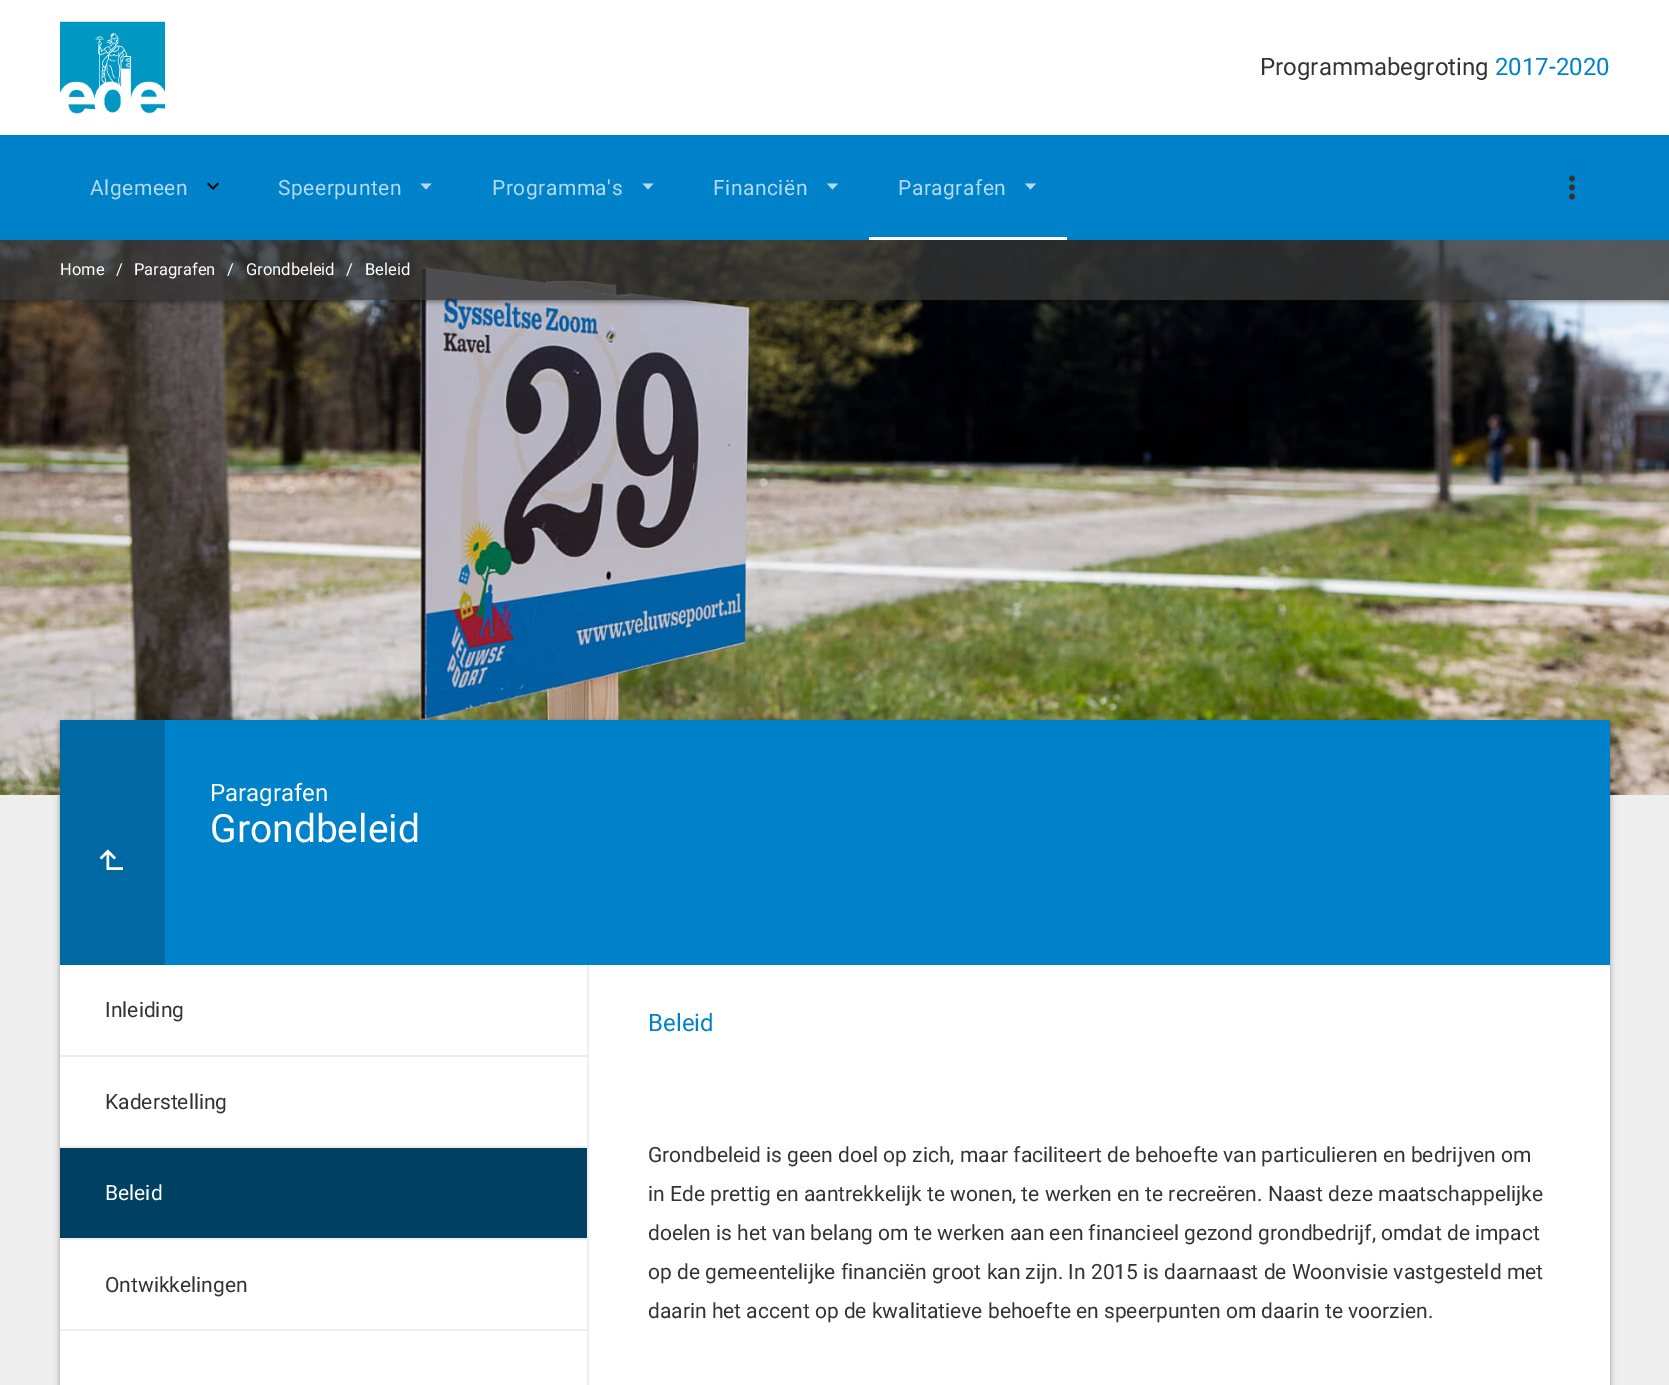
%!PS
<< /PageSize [1669 1385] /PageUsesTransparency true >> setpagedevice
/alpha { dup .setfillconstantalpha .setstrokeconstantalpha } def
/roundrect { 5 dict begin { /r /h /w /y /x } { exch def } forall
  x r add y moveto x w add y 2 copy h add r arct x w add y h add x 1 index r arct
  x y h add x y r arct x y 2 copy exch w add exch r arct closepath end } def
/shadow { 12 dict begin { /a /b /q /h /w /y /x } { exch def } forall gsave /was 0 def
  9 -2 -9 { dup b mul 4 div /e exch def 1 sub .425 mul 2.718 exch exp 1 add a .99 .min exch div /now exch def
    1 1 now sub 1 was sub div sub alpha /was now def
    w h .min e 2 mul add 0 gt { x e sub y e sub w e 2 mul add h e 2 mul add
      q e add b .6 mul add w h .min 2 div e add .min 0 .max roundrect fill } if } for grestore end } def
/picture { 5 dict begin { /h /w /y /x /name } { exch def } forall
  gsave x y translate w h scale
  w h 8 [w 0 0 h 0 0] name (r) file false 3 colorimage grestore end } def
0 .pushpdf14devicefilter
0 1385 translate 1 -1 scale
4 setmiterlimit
0.933 setgray
0 0 1669 1385 rectfill
(img4.rgb) 0 240 1669 555 picture
gsave
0 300 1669 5 rectclip
0 setgray
0 2 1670 300 0 2 0.26 shadow
grestore
gsave
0 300 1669 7 rectclip
0 setgray
0 2 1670 300 0 4 0.16 shadow
grestore
1 setgray
0 0 1669 135 rectfill
(img1.rgb) 60 21 105 93 picture
/Roboto-Regular [24 0 0 -24 0 0] selectfont
0.2 setgray
1260 75 moveto (Programmabegroting) show
0 0.51 0.792 setrgbcolor
1495 75 moveto (2017-2020) show
0 135 1669 105 rectfill
/Roboto-Regular [21 0 0 -21 0 0] selectfont
0.702 0.855 0.937 setrgbcolor
90 195 moveto 0.5 0 (Algemeen) ashow
(img2.rgb) 207 182 12 8 picture
278 195 moveto 0.5 0 (Speerpunten) ashow
newpath 420.5 183.5 moveto 431.5 183.5 lineto 426 189.5 lineto closepath fill
492 195 moveto 0.5 0 (Programma's) ashow
newpath 642.5 183.5 moveto 653.5 183.5 lineto 648 189.5 lineto closepath fill
713 195 moveto 0.5 0 (Financiën) ashow
newpath 827 183.5 moveto 838 183.5 lineto 832.5 189.5 lineto closepath fill
1 setgray
869 237 198 3 rectfill
0.702 0.855 0.937 setrgbcolor
898 195 moveto 0.5 0 (Paragrafen) ashow
newpath 1025 183.5 moveto 1036 183.5 lineto 1030.5 189.5 lineto closepath fill
(img3.rgb) 1569 175 6 25 picture
0.8 alpha
0.2 setgray
0 240 1669 60 rectfill
/Roboto-Regular [16.5 0 0 -16.5 0 0] selectfont
1 alpha
1 setgray
60 275 moveto (Home) show
116 275 moveto (/) show
134 275 moveto (Paragrafen) show
227 275 moveto (/) show
246 275 moveto (Grondbeleid) show
346 275 moveto (/) show
365 275 moveto (Beleid) show
0 setgray
60 722 1550 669 0 2 0.26 shadow
60 722 1550 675 0 4 0.16 shadow
1 setgray
60 965 1550 420 rectfill
0 0.51 0.792 setrgbcolor
165 720 1445 245 rectfill
0 0.408 0.635 setrgbcolor
60 720 105 245 rectfill
(img5.rgb) 99 849 24 21 picture
/Roboto-Regular [24 0 0 -24 0 0] selectfont
1 setgray
210 801 moveto (Paragrafen) show
/Roboto-Regular [39 0 0 -39 0 0] selectfont
210 842 moveto (Grondbeleid) show
0.933 setgray
60 1055 527 2 rectfill
/Roboto-Regular [21 0 0 -21 0 0] selectfont
0.2 setgray
105 1017 moveto (Inleiding) show
0.933 setgray
60 1146 527 2 rectfill
0.2 setgray
105 1109 moveto (Kaderstelling) show
0.933 setgray
60 1238 527 2 rectfill
0 0.255 0.388 setrgbcolor
60 1148 527 90 rectfill
1 setgray
105 1200 moveto (Beleid) show
0.933 setgray
60 1329 527 2 rectfill
0.2 setgray
105 1292 moveto (Ontwikkelingen) show
0.933 setgray
587 965 2 420 rectfill
/Roboto-Regular [24 0 0 -24 0 0] selectfont
0 0.51 0.792 setrgbcolor
648 1031 moveto (Beleid) show
/Roboto-Regular [21 0 0 -21 0 0] selectfont
0.2 setgray
648 1162 moveto (Grondbeleid is geen doel op zich, maar faciliteert de behoefte van particulieren en bedrijven om) show
648 1201 moveto (in Ede prettig en aantrekkelijk te wonen, te werken en te recreëren. Naast deze maatschappelijke) show
648 1240 moveto (doelen is het van belang om te werken aan een financieel gezond grondbedrijf, omdat de impact) show
648 1279 moveto (op de gemeentelijke financiën groot kan zijn. In 2015 is daarnaast de Woonvisie vastgesteld met) show
648 1318 moveto (daarin het accent op de kwalitatieve behoefte en speerpunten om daarin te voorzien.) show
.poppdf14devicefilter showpage
